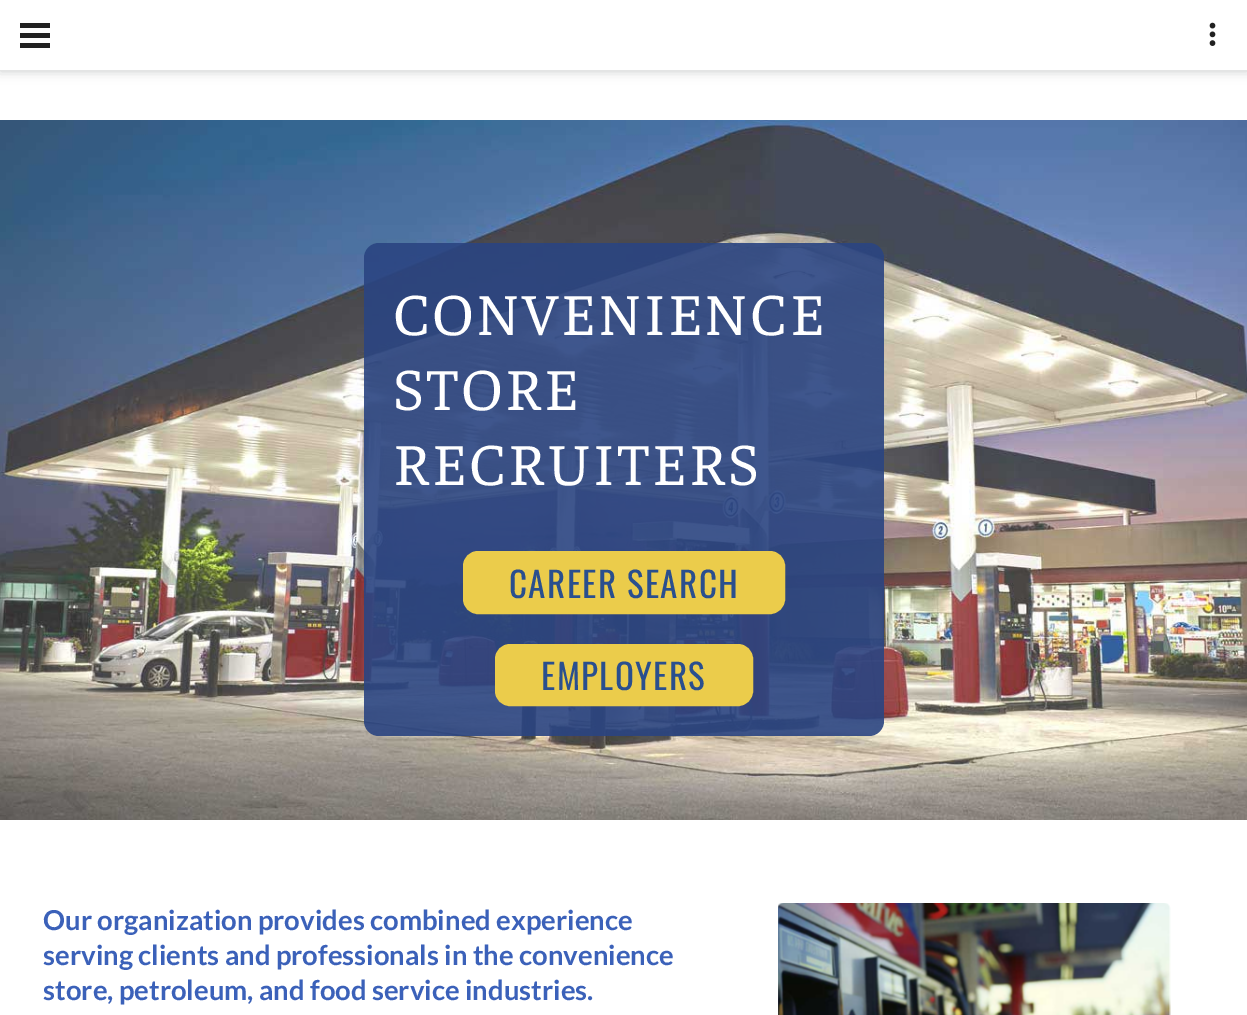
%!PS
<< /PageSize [1247 1015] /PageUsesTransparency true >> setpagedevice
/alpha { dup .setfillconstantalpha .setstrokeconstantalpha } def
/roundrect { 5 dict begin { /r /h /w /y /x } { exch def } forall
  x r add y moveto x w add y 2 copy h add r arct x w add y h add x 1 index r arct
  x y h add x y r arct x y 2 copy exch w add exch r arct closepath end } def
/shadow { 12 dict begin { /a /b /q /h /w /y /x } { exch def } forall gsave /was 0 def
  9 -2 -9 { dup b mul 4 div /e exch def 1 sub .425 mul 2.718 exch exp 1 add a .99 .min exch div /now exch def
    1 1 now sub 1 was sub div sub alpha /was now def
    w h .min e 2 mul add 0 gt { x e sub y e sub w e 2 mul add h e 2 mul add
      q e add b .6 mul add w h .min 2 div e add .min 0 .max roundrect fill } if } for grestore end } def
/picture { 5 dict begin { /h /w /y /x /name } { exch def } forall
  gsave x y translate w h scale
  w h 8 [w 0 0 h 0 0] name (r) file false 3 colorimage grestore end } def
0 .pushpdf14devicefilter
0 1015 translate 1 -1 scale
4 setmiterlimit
1 setgray
0 0 1247 1015 rectfill
0.263 0.267 0.271 setrgbcolor
0 1 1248 70 0 6 0.3 shadow
1 setgray
0 0 1247 70 rectfill
0.129 setgray
20 33 30 5 rectfill
20 23 30 5 rectfill
20 43 30 5 rectfill
(img1.rgb) 1209 22 7 24 picture
(img2.rgb) 0 120 1247 700 picture
0.9 alpha
0.165 0.267 0.506 setrgbcolor
364 243 520 493 15 roundrect fill
/Faustina-Regular [60 0 0 -60 0 0] selectfont
1 alpha
1 setgray
393 335 moveto 2.4 0 (CONVENIENCE) ashow
393 410 moveto 2.4 0 (STORE) ashow
393 485 moveto 2.4 0 (RECRUITERS) ashow
0.922 0.8 0.294 setrgbcolor
464.5 552.5 319 60 13.5 roundrect gsave fill grestore
3 setlinewidth
stroke
/Oswald-Regular [35 0 0 -35 0 0] selectfont
0.165 0.31 0.557 setrgbcolor
509 598 moveto 1.4 0 (CAREER SEARCH) ashow
0.922 0.8 0.294 setrgbcolor
496.5 645.5 255 59 13.5 roundrect gsave fill grestore
stroke
0.165 0.31 0.557 setrgbcolor
541 690 moveto 1.4 0 (EMPLOYERS) ashow
/Lato-Bold [27.5 0 0 -27.5 0 0] selectfont
0.231 0.38 0.725 setrgbcolor
43 930 moveto (Our organization provides combined experience) show
43 965 moveto (serving clients and professionals in the convenience) show
43 1000 moveto (store, petroleum, and food service industries.) show
(img3.rgb) 778 903 393 112 picture
.poppdf14devicefilter showpage
